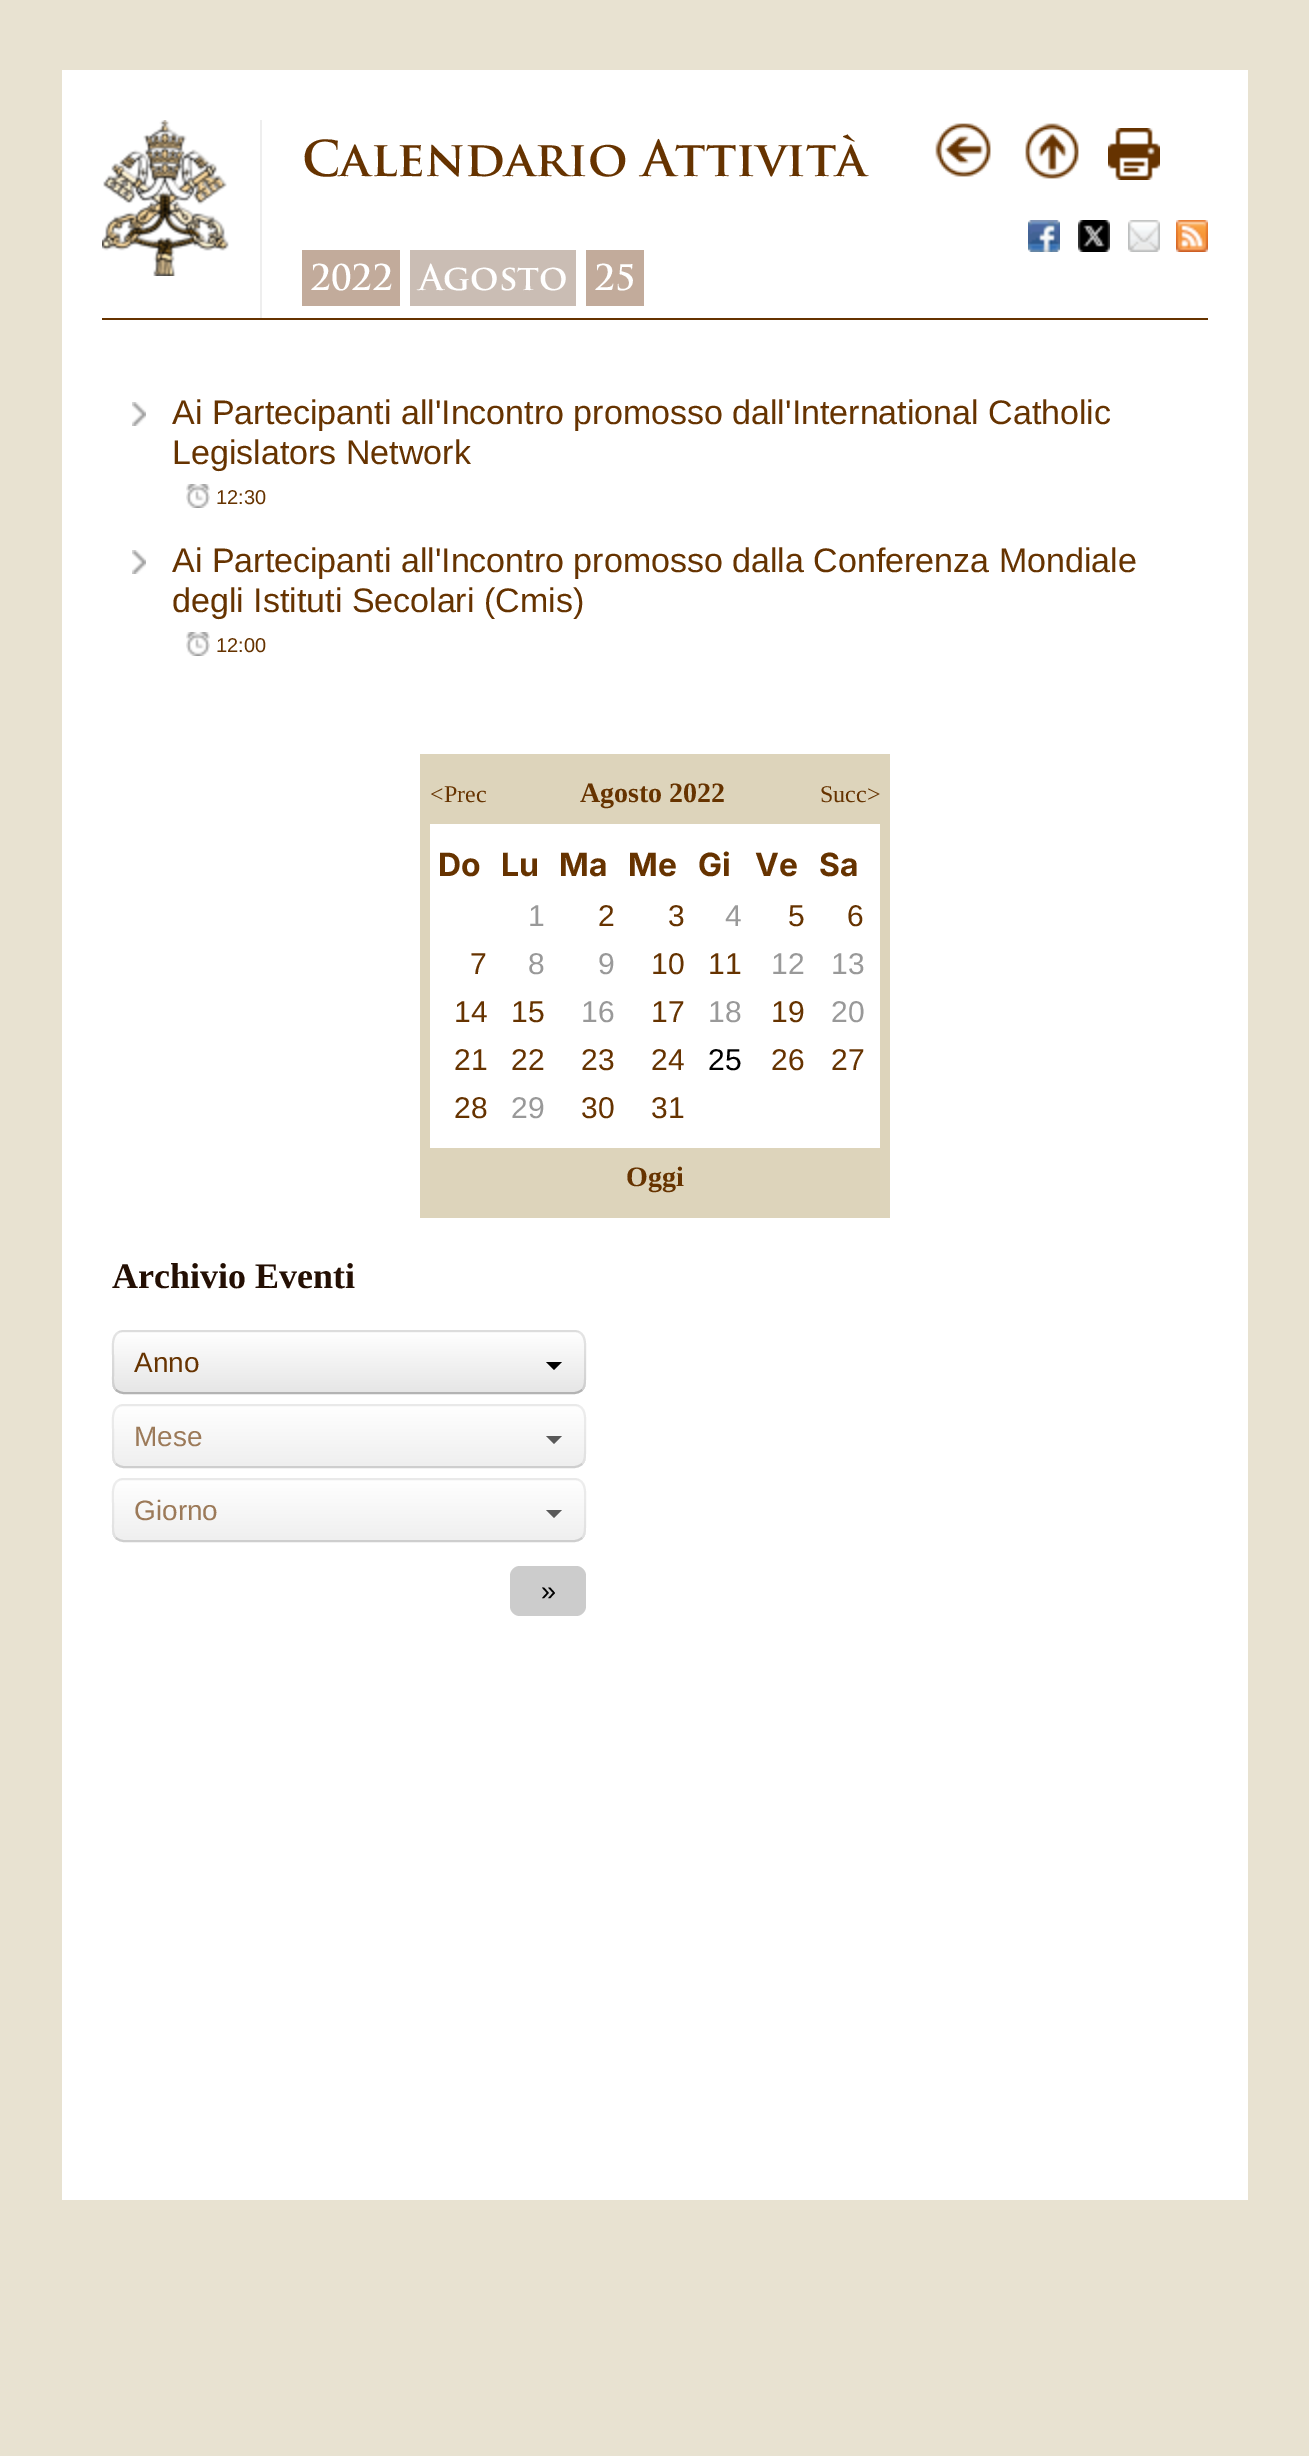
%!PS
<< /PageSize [1309 2456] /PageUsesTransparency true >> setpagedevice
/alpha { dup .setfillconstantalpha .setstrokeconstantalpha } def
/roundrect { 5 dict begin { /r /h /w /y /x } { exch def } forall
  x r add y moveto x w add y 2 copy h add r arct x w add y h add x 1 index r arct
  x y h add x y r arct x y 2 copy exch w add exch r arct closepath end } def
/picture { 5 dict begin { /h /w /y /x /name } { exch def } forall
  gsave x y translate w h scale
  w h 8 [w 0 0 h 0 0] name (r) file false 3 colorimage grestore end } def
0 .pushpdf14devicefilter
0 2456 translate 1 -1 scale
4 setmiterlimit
0.91 0.886 0.82 setrgbcolor
0 0 1309 2456 rectfill
1 setgray
62 70 1186 2130 rectfill
0.4 0.2 0 setrgbcolor
102 318 1106 2 rectfill
0.933 setgray
260 120 2 198 rectfill
(img1.rgb) 102 120 127 156 picture
/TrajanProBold-Bold [48 0 0 -48 0 0] selectfont
0.4 0.2 0 setrgbcolor
302 176 moveto (Calendario Attività) show
0.761 0.671 0.608 setrgbcolor
302 250 98 56 rectfill
/TrajanProBold-Bold [34.5 0 0 -34.5 0 0] selectfont
1 setgray
310 290 moveto (2022) show
0.792 0.741 0.706 setrgbcolor
410 250 166 56 rectfill
1 setgray
419 290 moveto (Agosto) show
0.761 0.671 0.608 setrgbcolor
586 250 58 56 rectfill
1 setgray
594 290 moveto (25) show
(img2.rgb) 935 123 56 54 picture
(img3.rgb) 1025 123 54 56 picture
(img4.rgb) 1108 128 52 52 picture
(img5.rgb) 1028 220 32 32 picture
(img6.rgb) 1078 220 32 32 picture
(img7.rgb) 1128 220 32 32 picture
(img8.rgb) 1176 220 32 32 picture
(img9.rgb) 132 402 14 24 picture
/LiberationSans-Regular [34 0 0 -34 0 0] selectfont
0.4 0.2 0 setrgbcolor
172 424 moveto (Ai Partecipanti all'Incontro promosso dall'International Catholic) show
172 464 moveto (Legislators Network) show
(img10.rgb) 186 484 24 24 picture
/LiberationSans-Regular [20 0 0 -20 0 0] selectfont
216 504 moveto (12:30) show
(img9.rgb) 132 550 14 24 picture
/LiberationSans-Regular [34 0 0 -34 0 0] selectfont
172 572 moveto (Ai Partecipanti all'Incontro promosso dalla Conferenza Mondiale) show
172 612 moveto (degli Istituti Secolari \(Cmis\)) show
(img10.rgb) 186 632 24 24 picture
/LiberationSans-Regular [20 0 0 -20 0 0] selectfont
216 652 moveto (12:00) show
0.867 0.831 0.733 setrgbcolor
420 754 470 464 rectfill
/LiberationSerif-Regular [24 0 0 -24 0 0] selectfont
0.4 0.2 0 setrgbcolor
430 802 moveto (<Prec) show
/LiberationSerif-Bold [28 0 0 -28 0 0] selectfont
580 802 moveto (Agosto 2022) show
/LiberationSerif-Regular [24 0 0 -24 0 0] selectfont
820 802 moveto (Succ>) show
1 setgray
430 824 450 324 rectfill
/Inter-Bold [32 0 0 -32 0 0] selectfont
0.4 0.2 0 setrgbcolor
438 876 moveto (Do) show
501 876 moveto (Lu) show
559 876 moveto (Ma) show
/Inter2-Bold [32 0 0 -32 0 0] selectfont
628 876 moveto (Me) show
/Inter-Bold [32 0 0 -32 0 0] selectfont
698 876 moveto (Gi) show
/Inter2-Bold [32 0 0 -32 0 0] selectfont
755 876 moveto (Ve) show
/Inter-Bold [32 0 0 -32 0 0] selectfont
819 876 moveto (Sa) show
/LiberationSans-Regular [30 0 0 -30 0 0] selectfont
0.6 setgray
528 926 moveto (1) show
0.4 0.2 0 setrgbcolor
598 926 moveto (2) show
668 926 moveto (3) show
0.6 setgray
725 926 moveto (4) show
0.4 0.2 0 setrgbcolor
788 926 moveto (5) show
847 926 moveto (6) show
470 974 moveto (7) show
0.6 setgray
528 974 moveto (8) show
598 974 moveto (9) show
0.4 0.2 0 setrgbcolor
651 974 moveto (10) show
708 974 moveto (11) show
0.6 setgray
771 974 moveto (12) show
831 974 moveto (13) show
0.4 0.2 0 setrgbcolor
454 1022 moveto (14) show
511 1022 moveto (15) show
0.6 setgray
581 1022 moveto (16) show
0.4 0.2 0 setrgbcolor
651 1022 moveto (17) show
0.6 setgray
708 1022 moveto (18) show
0.4 0.2 0 setrgbcolor
771 1022 moveto (19) show
0.6 setgray
831 1022 moveto (20) show
0.4 0.2 0 setrgbcolor
454 1070 moveto (21) show
511 1070 moveto (22) show
581 1070 moveto (23) show
651 1070 moveto (24) show
0 setgray
708 1070 moveto (25) show
0.4 0.2 0 setrgbcolor
771 1070 moveto (26) show
831 1070 moveto (27) show
454 1118 moveto (28) show
0.6 setgray
511 1118 moveto (29) show
0.4 0.2 0 setrgbcolor
581 1118 moveto (30) show
651 1118 moveto (31) show
/LiberationSerif-Bold [28 0 0 -28 0 0] selectfont
626 1186 moveto (Oggi) show
/LiberationSerif-Bold [36 0 0 -36 0 0] selectfont
0.141 0.059 0.012 setrgbcolor
112 1288 moveto (Archivio Eventi) show
0.961 setgray
112 1330 474 64 12 roundrect fill
gsave
112 1330 474 64 12 roundrect clip newpath
gsave newpath 112 1332 moveto 586 1332 lineto 586 1392 lineto 112 1392 lineto closepath clip newpath
<< /ShadingType 2 /ColorSpace /DeviceRGB /Coords [349 1332 349 1392] /Extend [true true] /Function << /FunctionType 2 /Domain [0 1] /C0 [1 1 1] /C1 [0.902 0.902 0.902] /N 1 >> >> shfill grestore
grestore
0.702 setgray
2 setlinewidth
newpath 582 1390 moveto 579.5 1392 577 1393 574 1393 curveto 124 1393 lineto 121 1393 118.5 1392 116 1390 curveto stroke
0.1 alpha
0 setgray
newpath 116 1390 moveto 112.5 1386 113 1380.5 113 1375.5 curveto 113 1355.5 lineto 113 1346.5 110.5 1331 124 1331 curveto 574 1331 lineto 587.5 1331 585 1346.5 585 1355.5 curveto 585 1375.5 lineto 585 1380.5 585.5 1386 582 1390 curveto stroke
/LiberationSans-Regular [28 0 0 -28 0 0] selectfont
1 alpha
0.4 0.2 0 setrgbcolor
134 1372 moveto (Anno) show
0 setgray
newpath 546 1362 moveto 562 1362 lineto 554 1370 lineto closepath fill
0.976 setgray
112 1404 474 64 12 roundrect fill
gsave
112 1404 474 64 12 roundrect clip newpath
gsave newpath 112 1406 moveto 586 1406 lineto 586 1466 lineto 112 1466 lineto closepath clip newpath
<< /ShadingType 2 /ColorSpace /DeviceRGB /Coords [349 1406 349 1466] /Extend [true true] /Function << /FunctionType 2 /Domain [0 1] /C0 [1 1 1] /C1 [0.937 0.937 0.937] /N 1 >> >> shfill grestore
grestore
0.808 setgray
newpath 582 1464 moveto 579.5 1466 577 1467 574 1467 curveto 124 1467 lineto 121 1467 118.5 1466 116 1464 curveto stroke
0.1 alpha
0.349 setgray
newpath 116 1464 moveto 112.5 1460 113 1454.5 113 1449.5 curveto 113 1429.5 lineto 113 1420.5 110.5 1405 124 1405 curveto 574 1405 lineto 587.5 1405 585 1420.5 585 1429.5 curveto 585 1449.5 lineto 585 1454.5 585.5 1460 582 1464 curveto stroke
1 alpha
0.612 0.478 0.349 setrgbcolor
134 1446 moveto (Mese) show
0.349 setgray
newpath 546 1436 moveto 562 1436 lineto 554 1444 lineto closepath fill
0.976 setgray
112 1478 474 64 12 roundrect fill
gsave
112 1478 474 64 12 roundrect clip newpath
gsave newpath 112 1480 moveto 586 1480 lineto 586 1540 lineto 112 1540 lineto closepath clip newpath
<< /ShadingType 2 /ColorSpace /DeviceRGB /Coords [349 1480 349 1540] /Extend [true true] /Function << /FunctionType 2 /Domain [0 1] /C0 [1 1 1] /C1 [0.937 0.937 0.937] /N 1 >> >> shfill grestore
grestore
0.808 setgray
newpath 582 1538 moveto 579.5 1540 577 1541 574 1541 curveto 124 1541 lineto 121 1541 118.5 1540 116 1538 curveto stroke
0.1 alpha
0.349 setgray
newpath 116 1538 moveto 112.5 1534 113 1528.5 113 1523.5 curveto 113 1503.5 lineto 113 1494.5 110.5 1479 124 1479 curveto 574 1479 lineto 587.5 1479 585 1494.5 585 1503.5 curveto 585 1523.5 lineto 585 1528.5 585.5 1534 582 1538 curveto stroke
1 alpha
0.612 0.478 0.349 setrgbcolor
134 1520 moveto (Giorno) show
0.349 setgray
newpath 546 1510 moveto 562 1510 lineto 554 1518 lineto closepath fill
0.8 setgray
510 1566 76 50 10 roundrect fill
/LiberationSans-Regular [27 0 0 -27 0 0] selectfont
0 setgray
541 1600 moveto (») show
.poppdf14devicefilter showpage
